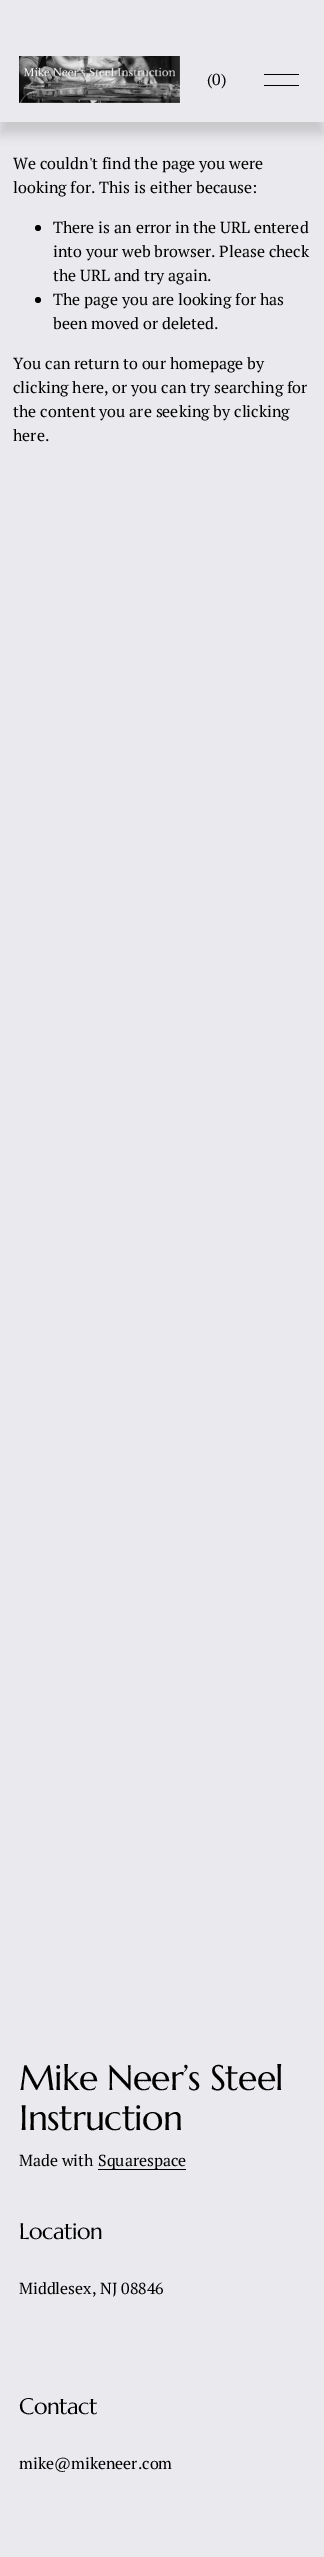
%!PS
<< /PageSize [324 2557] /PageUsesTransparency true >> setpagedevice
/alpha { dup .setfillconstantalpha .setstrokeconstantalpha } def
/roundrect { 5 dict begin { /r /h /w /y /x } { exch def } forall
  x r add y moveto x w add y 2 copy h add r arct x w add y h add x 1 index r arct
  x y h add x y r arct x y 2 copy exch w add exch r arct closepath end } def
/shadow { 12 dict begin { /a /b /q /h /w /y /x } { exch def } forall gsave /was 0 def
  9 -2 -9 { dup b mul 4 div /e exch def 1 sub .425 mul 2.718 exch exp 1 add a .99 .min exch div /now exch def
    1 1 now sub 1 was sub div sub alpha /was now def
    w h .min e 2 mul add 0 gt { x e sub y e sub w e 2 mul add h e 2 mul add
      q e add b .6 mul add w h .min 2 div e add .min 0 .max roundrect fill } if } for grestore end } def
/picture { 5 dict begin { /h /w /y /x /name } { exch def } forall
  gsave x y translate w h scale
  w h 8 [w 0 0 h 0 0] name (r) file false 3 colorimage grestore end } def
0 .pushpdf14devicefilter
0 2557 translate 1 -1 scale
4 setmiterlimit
0.918 0.918 0.933 setrgbcolor
0 0 324 2557 rectfill
gsave
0 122 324 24 rectclip
0.78 0.78 0.792 setrgbcolor
0 49 324 85 0 6 1 shadow
grestore
(img1.rgb) 19 56 161 47 picture
/PTSerif-Regular [16 0 0 -16 0 0] selectfont
0 setgray
207 85 moveto (\(0\)) show
264 74 35 1 rectfill
264 85 35 1 rectfill
13 169 moveto (We couldn't find the page you were) show
13 193 moveto (looking for. This is either because:) show
newpath 38 228 3 0 360 arc closepath fill
53 233 moveto (There is an error in the URL entered) show
53 257 moveto (into your web browser. Please check) show
53 281 moveto (the URL and try again.) show
newpath 38 300 3 0 360 arc closepath fill
53 305 moveto (The page you are looking for has) show
53 329 moveto (been moved or deleted.) show
13 369 moveto (You can return to our homepage by) show
13 393 moveto (clicking here, or you can try searching for) show
13 417 moveto (the content you are seeking by clicking) show
13 441 moveto (here.) show
/Marcellus-Regular [35.5 0 0 -35.5 0 0] selectfont
19 2090 moveto -0.75 0 (Mike Neer’s Steel) ashow
19 2130 moveto -0.75 0 (Instruction) ashow
/PTSerif-Regular [16 0 0 -16 0 0] selectfont
19 2166 moveto (Made with) show
98 2169 88 1 rectfill
98 2166 moveto (Squarespace) show
/Marcellus-Regular [22.5 0 0 -22.5 0 0] selectfont
19 2239 moveto -0.5 0 (Location) ashow
/PTSerif-Regular [16 0 0 -16 0 0] selectfont
19 2294 moveto (Middlesex, NJ 08846) show
/Marcellus-Regular [22.5 0 0 -22.5 0 0] selectfont
19 2414 moveto -0.5 0 (Contact) ashow
/PTSerif-Regular [16 0 0 -16 0 0] selectfont
19 2469 moveto (mike@mikeneer.com) show
.poppdf14devicefilter showpage
